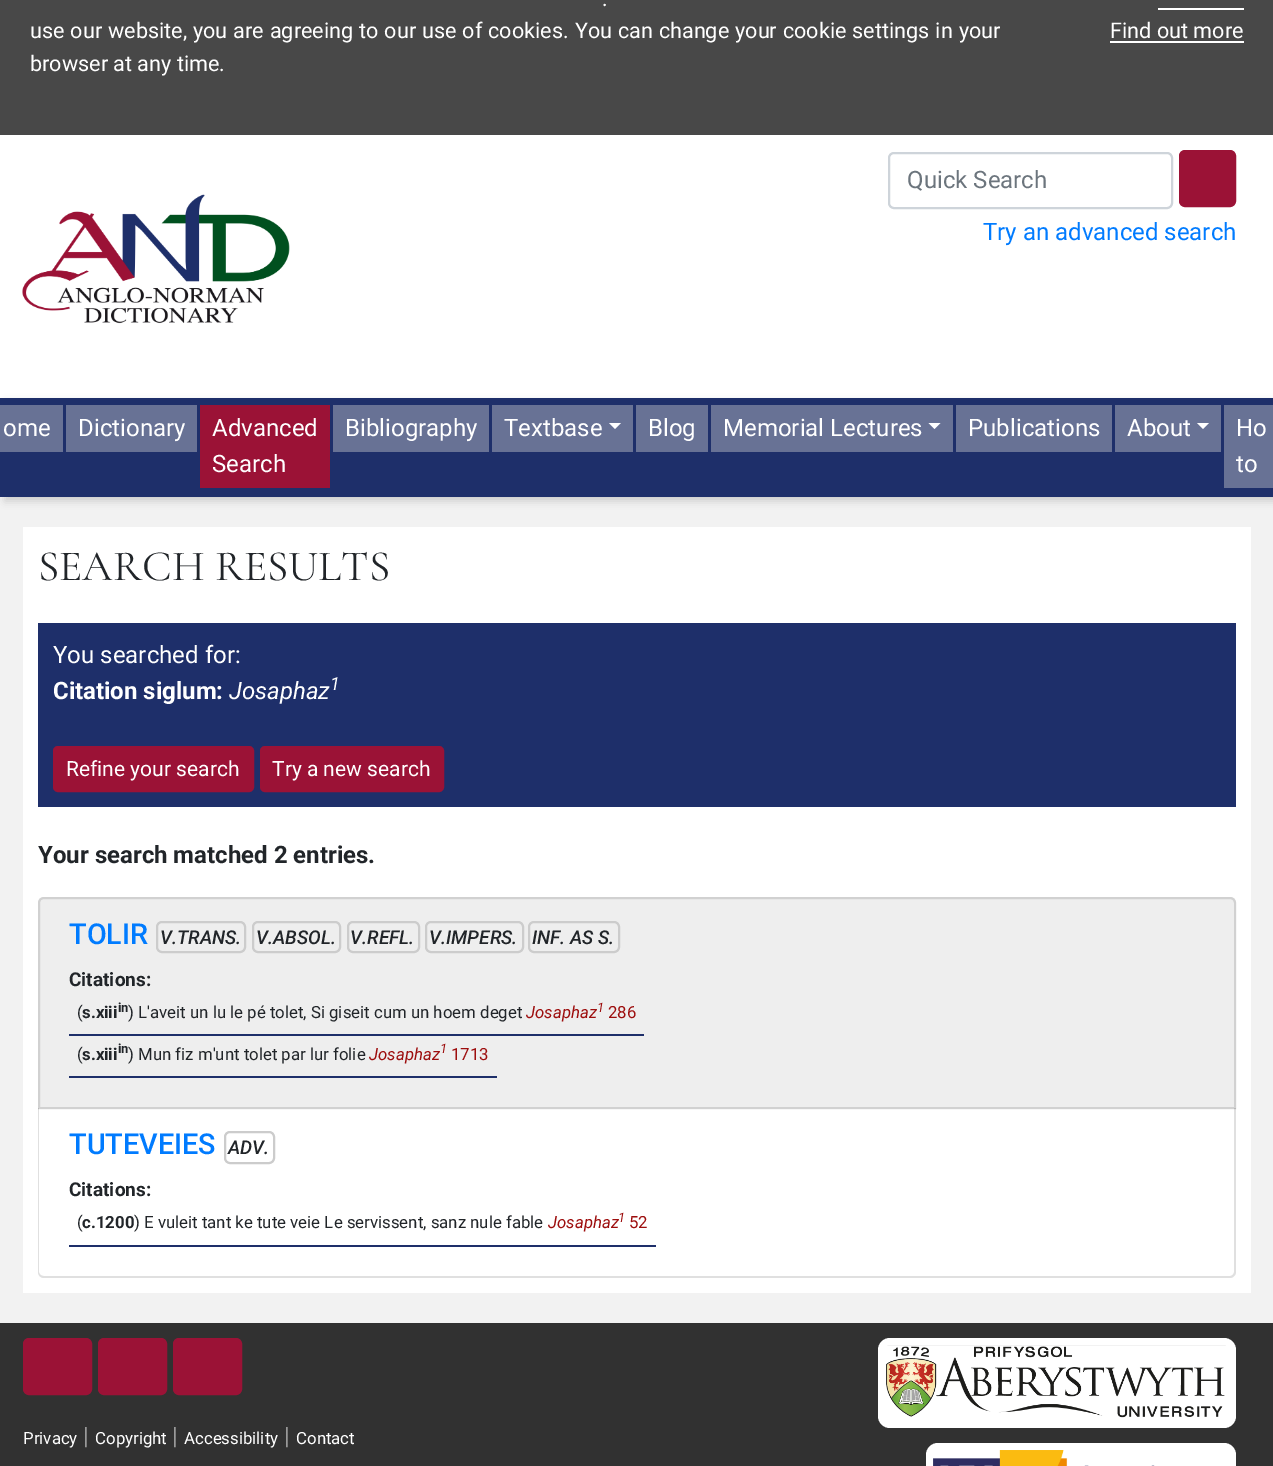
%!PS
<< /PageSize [1273 1466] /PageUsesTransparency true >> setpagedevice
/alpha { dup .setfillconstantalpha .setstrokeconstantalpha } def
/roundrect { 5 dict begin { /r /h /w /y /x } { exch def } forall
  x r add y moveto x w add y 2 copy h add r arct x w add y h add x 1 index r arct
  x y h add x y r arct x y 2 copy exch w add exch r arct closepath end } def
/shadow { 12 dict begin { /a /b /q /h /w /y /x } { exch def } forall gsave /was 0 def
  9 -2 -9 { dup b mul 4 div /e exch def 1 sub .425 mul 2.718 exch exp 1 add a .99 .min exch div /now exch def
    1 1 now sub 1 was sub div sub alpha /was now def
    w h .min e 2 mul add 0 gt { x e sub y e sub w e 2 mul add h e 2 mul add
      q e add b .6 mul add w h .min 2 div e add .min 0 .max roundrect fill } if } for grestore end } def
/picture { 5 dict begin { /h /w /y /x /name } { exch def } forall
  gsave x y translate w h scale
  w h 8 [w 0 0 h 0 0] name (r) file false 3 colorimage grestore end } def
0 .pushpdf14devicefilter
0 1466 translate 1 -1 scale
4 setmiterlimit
0.949 setgray
0 0 1273 1466 rectfill
0.282 setgray
0 0 1273 135 rectfill
/Roboto-Regular [21.6 0 0 -21.6 0 0] selectfont
1 setgray
602 6 moveto 1 0 32 (.) widthshow
30 38 moveto 0.6 0 32 (use our website, you are agreeing to our use of cookies. You can change your cookie settings in your) widthshow
30 71 moveto (browser at any time.) show
1158 8 86 2 rectfill
1110 38 moveto (Find out more) show
1110 41 134 2 rectfill
0 135 1273 263 rectfill
(img1.rgb) 22 194 268 130 picture
0.808 0.831 0.855 setrgbcolor
2 setlinewidth
889 153 283 55 5 roundrect stroke
/Roboto-Regular [24 0 0 -24 0 0] selectfont
0.424 0.459 0.49 setrgbcolor
907 188 moveto (Quick Search) show
0.608 0.071 0.212 setrgbcolor
1180 151 55 55 5 roundrect gsave fill grestore
stroke
0 0.482 1 setrgbcolor
983 240 moveto (Try an advanced search) show
0 setgray
5 402 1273 99 0 4 0.15 shadow
0.118 0.184 0.416 setrgbcolor
0 398 1273 99 rectfill
0.408 0.447 0.584 setrgbcolor
0 405 63 47 rectfill
1 setgray
3 436 moveto (ome) show
0.408 0.447 0.584 setrgbcolor
66 405 131 47 rectfill
1 setgray
78 436 moveto (Dictionary) show
0.608 0.071 0.212 setrgbcolor
200 405 130 83 rectfill
1 setgray
212 436 moveto (Advanced) show
212 472 moveto (Search) show
0.408 0.447 0.584 setrgbcolor
333 405 156 47 rectfill
1 setgray
345 436 moveto (Bibliography) show
0.408 0.447 0.584 setrgbcolor
492 405 141 47 rectfill
1 setgray
504 436 moveto (Textbase) show
newpath 609 423 moveto 621 423 lineto 615 429 lineto closepath fill
0.408 0.447 0.584 setrgbcolor
636 405 72 47 rectfill
1 setgray
648 436 moveto (Blog) show
0.408 0.447 0.584 setrgbcolor
711 405 242 47 rectfill
1 setgray
723 436 moveto (Memorial Lectures) show
newpath 928.5 423 moveto 940.5 423 lineto 934.5 429 lineto closepath fill
0.408 0.447 0.584 setrgbcolor
956 405 156 47 rectfill
1 setgray
968 436 moveto (Publications) show
0.408 0.447 0.584 setrgbcolor
1115 405 106 47 rectfill
1 setgray
1127 436 moveto (About) show
newpath 1197 423 moveto 1209 423 lineto 1203 429 lineto closepath fill
0.408 0.447 0.584 setrgbcolor
1224 405 49 83 rectfill
1 setgray
1236 436 moveto (Ho) show
1236 472 moveto (to) show
23 527 1228 766 rectfill
/CormorantGaramond-Regular [43.25 0 0 -43.25 0 0] selectfont
0.129 0.145 0.161 setrgbcolor
38 580 moveto (SEARCH RESULTS) show
0.118 0.184 0.416 setrgbcolor
38 623 1198 184 rectfill
/Roboto-Regular [24 0 0 -24 0 0] selectfont
1 setgray
53 663 moveto (You searched for:) show
/Roboto-Bold [24 0 0 -24 0 0] selectfont
53 699 moveto (Citation siglum:) show
/Roboto-Italic [24 0 0 -24 0 0] selectfont
229 699 moveto (Josaphaz) show
/Roboto-Italic [18 0 0 -18 0 0] selectfont
330 690 moveto (1) show
0.608 0.071 0.212 setrgbcolor
54 747 199 44 4 roundrect gsave fill grestore
stroke
/Roboto-Regular [21 0 0 -21 0 0] selectfont
1 setgray
66 776 moveto (Refine your search) show
0.608 0.071 0.212 setrgbcolor
261 747 182 44 4 roundrect gsave fill grestore
stroke
1 setgray
272 776 moveto (Try a new search) show
/Roboto-Bold [24 0 0 -24 0 0] selectfont
0.129 0.145 0.161 setrgbcolor
38 863 moveto (Your search matched 2 entries.) show
0.933 setgray
newpath 44 897 moveto 1230 897 lineto 1233.5 897 1236 899.5 1236 903 curveto 1236 1109 lineto 38 1109 lineto 38 903 lineto 38 899.5 40.5 897 44 897 curveto closepath fill
0.12 alpha
0 setgray
newpath 44 898 moveto 1230 898 lineto 1233 898 1235 900 1235 903 curveto 1235 1108 lineto 39 1108 lineto 39 903 lineto 39 900 41 898 44 898 curveto closepath stroke
/Roboto-Medium [28.75 0 0 -28.75 0 0] selectfont
1 alpha
0 0.482 1 setrgbcolor
69 944 moveto (TOLIR) show
0.8 setgray
157 922 88 30 5 roundrect stroke
/Roboto-MediumItalic [19 0 0 -19 0 0] selectfont
0.129 0.145 0.161 setrgbcolor
160 944 moveto (V.TRANS.) show
0.8 setgray
253 922 87 30 5 roundrect stroke
0.129 0.145 0.161 setrgbcolor
256 944 moveto (V.ABSOL.) show
0.8 setgray
348 922 71 30 5 roundrect stroke
0.129 0.145 0.161 setrgbcolor
350 944 moveto (V.REFL.) show
0.8 setgray
426 922 97 30 5 roundrect stroke
0.129 0.145 0.161 setrgbcolor
429 944 moveto (V.IMPERS.) show
0.8 setgray
529 922 90 30 5 roundrect stroke
0.129 0.145 0.161 setrgbcolor
532 944 moveto (INF. AS S.) show
/Roboto-Bold [19 0 0 -19 0 0] selectfont
69 986 moveto (Citations:) show
0.118 0.184 0.416 setrgbcolor
69 1034 575 2 rectfill
/Roboto-Regular [16.8 0 0 -16.8 0 0] selectfont
0.129 0.145 0.161 setrgbcolor
77 1018 moveto (\() show
/Roboto-Bold [16.8 0 0 -16.8 0 0] selectfont
82 1018 moveto (s.xiii) show
/Roboto-Bold [13 0 0 -13 0 0] selectfont
118 1012 moveto (in) show
/Roboto-Regular [16.8 0 0 -16.8 0 0] selectfont
128 1018 moveto (\) L'aveit un lu le pé tolet, Si giseit cum un hoem deget) show
/Roboto-Italic [16.8 0 0 -16.8 0 0] selectfont
0.616 0.055 0.055 setrgbcolor
526 1018 moveto (Josaphaz) show
/Roboto-Italic [13 0 0 -13 0 0] selectfont
597 1012 moveto (1) show
/Roboto-Regular [16.8 0 0 -16.8 0 0] selectfont
608 1018 moveto (286) show
0.118 0.184 0.416 setrgbcolor
69 1076 428 2 rectfill
0.129 0.145 0.161 setrgbcolor
77 1060 moveto (\() show
/Roboto-Bold [16.8 0 0 -16.8 0 0] selectfont
82 1060 moveto (s.xiii) show
/Roboto-Bold [13 0 0 -13 0 0] selectfont
118 1053 moveto (in) show
/Roboto-Regular [16.8 0 0 -16.8 0 0] selectfont
128 1060 moveto (\) Mun fiz m'unt tolet par lur folie) show
/Roboto-Italic [16.8 0 0 -16.8 0 0] selectfont
0.616 0.055 0.055 setrgbcolor
369 1060 moveto (Josaphaz) show
/Roboto-Italic [13 0 0 -13 0 0] selectfont
440 1053 moveto (1) show
/Roboto-Regular [16.8 0 0 -16.8 0 0] selectfont
451 1060 moveto (1713) show
0.12 alpha
0 setgray
newpath 38 1108 moveto 1236 1108 lineto 1236 1272 lineto 1236 1275 1233 1278 1230 1278 curveto 44 1278 lineto 40 1278 38 1275 38 1272 curveto closepath 39 1108 moveto 1234 1108 lineto 1234 1272 lineto 1234 1274 1232 1276 1230 1276 curveto 44 1276 lineto 41 1276 39 1274 39 1272 curveto closepath eofill
/Roboto-Medium [28.75 0 0 -28.75 0 0] selectfont
1 alpha
0 0.482 1 setrgbcolor
69 1154 moveto (TUTEVEIES) show
0.8 setgray
225 1132 49 31 5 roundrect stroke
/Roboto-MediumItalic [19 0 0 -19 0 0] selectfont
0.129 0.145 0.161 setrgbcolor
228 1154 moveto (ADV.) show
/Roboto-Bold [19 0 0 -19 0 0] selectfont
69 1196 moveto (Citations:) show
0.118 0.184 0.416 setrgbcolor
69 1245 587 2 rectfill
/Roboto-Regular [16.8 0 0 -16.8 0 0] selectfont
0.129 0.145 0.161 setrgbcolor
77 1228 moveto (\() show
/Roboto-Bold [16.8 0 0 -16.8 0 0] selectfont
82 1228 moveto (c.1200) show
/Roboto-Regular [16.8 0 0 -16.8 0 0] selectfont
134 1228 moveto (\) E vuleit tant ke tute veie Le servissent, sanz nule fable) show
/Roboto-Italic [16.8 0 0 -16.8 0 0] selectfont
0.616 0.055 0.055 setrgbcolor
548 1228 moveto (Josaphaz) show
/Roboto-Italic [13 0 0 -13 0 0] selectfont
618 1222 moveto (1) show
/Roboto-Regular [16.8 0 0 -16.8 0 0] selectfont
629 1228 moveto (52) show
0.192 setgray
0 1323 1273 143 rectfill
0.608 0.071 0.212 setrgbcolor
24 1339 67 55 5 roundrect gsave fill grestore
stroke
99 1339 67 55 5 roundrect gsave fill grestore
stroke
174 1339 67 55 5 roundrect gsave fill grestore
stroke
1 setgray
23 1444 moveto (Privacy) show
/Roboto-Regular [24 0 0 -24 0 0] selectfont
0.6 setgray
83 1444 moveto (|) show
/Roboto-Regular [16.8 0 0 -16.8 0 0] selectfont
1 setgray
95 1444 moveto (Copyright) show
/Roboto-Regular [24 0 0 -24 0 0] selectfont
0.6 setgray
172 1444 moveto (|) show
/Roboto-Regular [16.8 0 0 -16.8 0 0] selectfont
1 setgray
184 1444 moveto (Accessibility) show
/Roboto-Regular [24 0 0 -24 0 0] selectfont
0.6 setgray
284 1444 moveto (|) show
/Roboto-Regular [16.8 0 0 -16.8 0 0] selectfont
1 setgray
296 1444 moveto (Contact) show
878 1338 358 90 12 roundrect fill
(img2.rgb) 886 1345 340 73 picture
926 1443 310 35 12 roundrect fill
(img3.rgb) 933 1450 222 16 picture
.poppdf14devicefilter showpage
